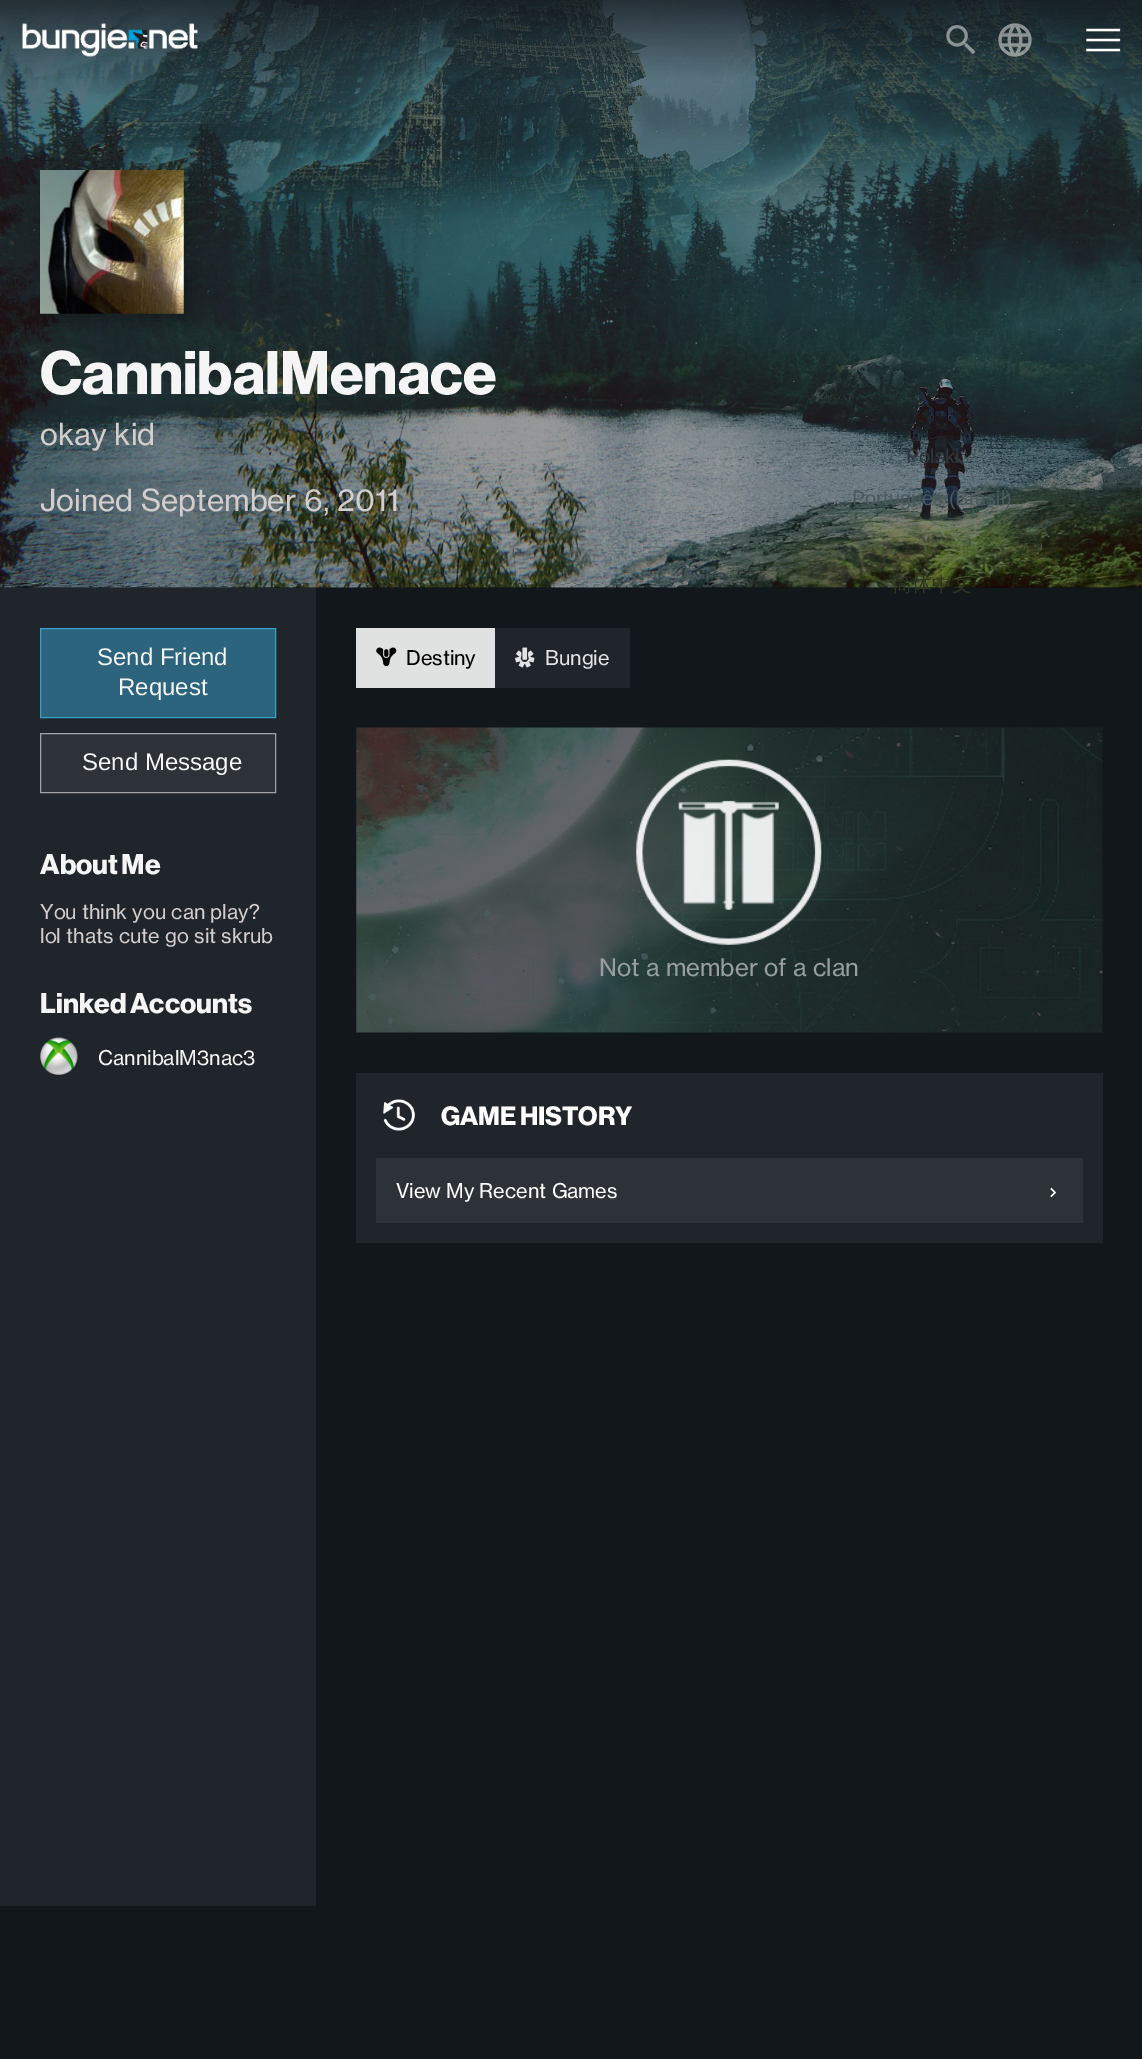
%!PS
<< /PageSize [1142 2059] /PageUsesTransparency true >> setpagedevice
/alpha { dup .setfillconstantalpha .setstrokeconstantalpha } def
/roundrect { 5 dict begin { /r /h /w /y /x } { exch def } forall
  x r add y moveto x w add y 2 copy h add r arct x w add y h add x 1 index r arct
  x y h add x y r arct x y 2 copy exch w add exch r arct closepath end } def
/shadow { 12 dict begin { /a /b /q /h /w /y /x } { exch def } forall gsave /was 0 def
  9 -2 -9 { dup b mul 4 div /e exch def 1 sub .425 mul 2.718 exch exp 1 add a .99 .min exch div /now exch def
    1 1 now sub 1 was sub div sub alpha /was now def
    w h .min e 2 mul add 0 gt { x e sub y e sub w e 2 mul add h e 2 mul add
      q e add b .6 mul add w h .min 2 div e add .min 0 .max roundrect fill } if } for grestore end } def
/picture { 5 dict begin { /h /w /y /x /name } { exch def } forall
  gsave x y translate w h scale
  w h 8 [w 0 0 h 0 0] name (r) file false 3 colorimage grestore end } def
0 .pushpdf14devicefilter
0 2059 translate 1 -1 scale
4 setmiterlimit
0.071 0.09 0.11 setrgbcolor
0 0 1142 2059 rectfill
0.043 0.055 0.067 setrgbcolor
0 587 1142 1 rectfill
(img1.rgb) 0 0 1142 588 picture
0 setgray
46 176 144 144 0 9.5 0.28 shadow
(img2.rgb) 40 170 144 144 picture
/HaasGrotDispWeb-Bold [60 0 0 -60 0 0] selectfont
0.961 setgray
40 394 moveto (CannibalMenace) show
/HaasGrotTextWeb-Regular [30 0 0 -30 0 0] selectfont
0.827 0.804 0.804 setrgbcolor
40 445 moveto (okay kid) show
40 511 moveto (Joined September 6, 2011) show
0.125 0.145 0.169 setrgbcolor
0 588 316 1318 rectfill
0.169 0.392 0.486 setrgbcolor
41 629 234 88 rectfill
0.216 0.631 0.788 setrgbcolor
40.5 628.5 235 89 rectstroke
/LiberationSans-Regular [24 0 0 -24 0 0] selectfont
0.961 setgray
97 665 moveto (Send Friend) show
118 695 moveto (Request) show
0.176 0.196 0.22 setrgbcolor
41 734 234 58 rectfill
0.627 0.635 0.639 setrgbcolor
40.5 733.5 235 59 rectstroke
0.961 setgray
82 770 moveto (Send Message) show
/HaasGrotDispWeb-Bold [28 0 0 -28 0 0] selectfont
40 874 moveto (About Me) show
/HaasGrotTextWeb-Regular [20 0 0 -20 0 0] selectfont
0.827 0.804 0.804 setrgbcolor
40 919 moveto (You think you can play?) show
40 943 moveto (lol thats cute go sit skrub) show
/HaasGrotDispWeb-Bold [28 0 0 -28 0 0] selectfont
0.961 setgray
40 1013 moveto (Linked Accounts) show
(img3.rgb) 40 1037 38 38 picture
/HaasGrotTextWeb-Regular [20 0 0 -20 0 0] selectfont
98 1065 moveto (CannibalM3nac3) show
0.878 0.882 0.882 setrgbcolor
356 628 139 60 rectfill
(img4.rgb) 376 647 21 20 picture
0 setgray
406 665 moveto (Destiny) show
0.125 0.145 0.169 setrgbcolor
495 628 135 60 rectfill
(img5.rgb) 515 647 20 21 picture
0.886 0.89 0.89 setrgbcolor
545 665 moveto (Bungie) show
(img6.rgb) 356 727 747 306 picture
(img7.rgb) 636 759 186 186 picture
/HaasGrotTextWeb-Regular [24 0 0 -24 0 0] selectfont
0.592 0.624 0.62 setrgbcolor
599 976 moveto (Not a member of a clan) show
0.125 0.145 0.169 setrgbcolor
356 1073 747 170 rectfill
(img8.rgb) 383 1099 32 32 picture
/HaasGrotDispWeb-Bold [26 0 0 -26 0 0] selectfont
1 setgray
441 1125 moveto (GAME HISTORY) show
0.176 0.196 0.22 setrgbcolor
376 1158 707 65 rectfill
/HaasGrotTextWeb-Regular [20 0 0 -20 0 0] selectfont
1 setgray
396 1198 moveto (View My Recent Games) show
(img9.rgb) 1050 1187 7 11 picture
(img10.rgb) 21 23 177 34 picture
(img11.rgb) 1086 28 35 24 picture
(img12.rgb) 946 25 30 29 picture
(img13.rgb) 998 23 34 34 picture
/LiberationSans-Regular [20 0 0 -20 0 0] selectfont
0.184 0.208 0.227 setrgbcolor
906 463 moveto (Polski) show
0.286 0.345 0.357 setrgbcolor
852 505 moveto (Português \(Brasil\)) show
/WenQuanYiZenHei-Medium [20 0 0 -20 0 0] selectfont
0.184 0.212 0.122 setrgbcolor
892 591 moveto (简体中文) show
.poppdf14devicefilter showpage
